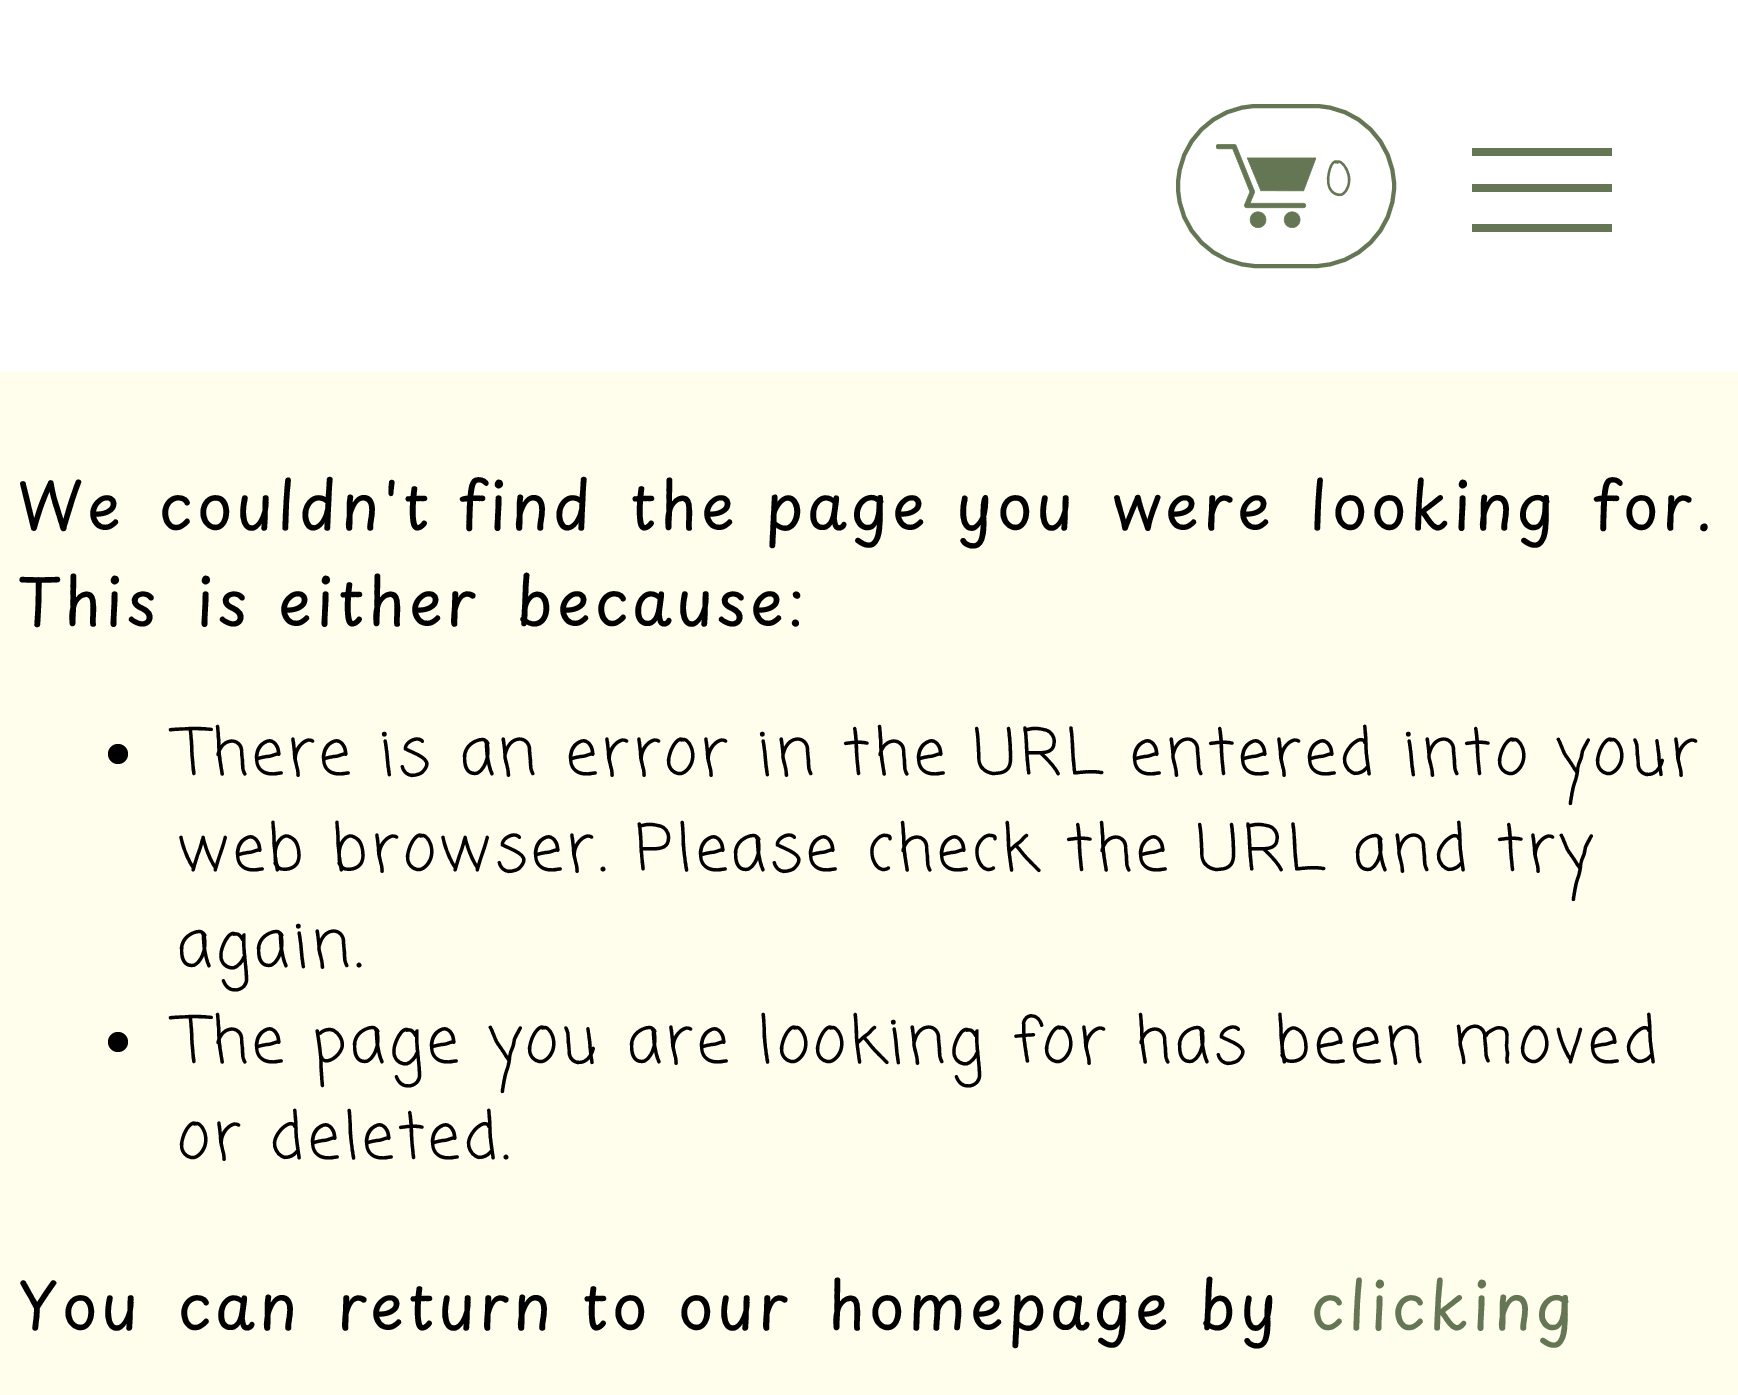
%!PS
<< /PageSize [1738 1395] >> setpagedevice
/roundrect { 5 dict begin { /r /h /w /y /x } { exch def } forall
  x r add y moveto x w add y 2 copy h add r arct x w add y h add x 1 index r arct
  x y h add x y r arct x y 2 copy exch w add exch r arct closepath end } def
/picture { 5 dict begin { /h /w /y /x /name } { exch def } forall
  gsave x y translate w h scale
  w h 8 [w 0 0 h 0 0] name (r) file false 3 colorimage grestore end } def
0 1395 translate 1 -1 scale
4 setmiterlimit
1 0.992 0.922 setrgbcolor
0 0 1738 1395 rectfill
1 setgray
0 0 1738 372 rectfill
0.392 0.463 0.325 setrgbcolor
4 setlinewidth
1178 106 216 160 80 roundrect stroke
(img1.rgb) 1216 144 100 84 picture
/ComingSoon-Regular [48 0 0 -48 0 0] selectfont
1325 196 moveto 3 0 (0) ashow
1472 148 140 8 rectfill
1472 184 140 8 rectfill
1472 224 140 8 rectfill
/PlaypenSans-Regular [64 0 0 -64 0 0] selectfont
0 setgray
17 530 moveto 4 0 32 3.85 0 (We couldn't) awidthshow
459 530 moveto 4 0 32 3.85 0 (find the) awidthshow
765 530 moveto 4 0 32 3.85 0 (page) awidthshow
956 530 moveto 4 0 32 3.85 0 (you were looking for.) awidthshow
17 626 moveto 5 0 32 3.85 0 (This is) awidthshow
278 626 moveto 5 0 32 3.85 0 (either because:) awidthshow
newpath 118 754 10 0 360 arc closepath fill
/ComingSoon-Regular [64 0 0 -64 0 0] selectfont
177 774 moveto 3.85 0 (There is an error in the URL entered into your) ashow
177 870 moveto 3.85 0 (web browser. Please check the URL and try) ashow
177 966 moveto 3.85 0 (again.) ashow
newpath 118 1042 10 0 360 arc closepath fill
177 1062 moveto 3.85 0 (The page you are looking for has been moved) ashow
177 1158 moveto 3.85 0 (or deleted.) ashow
/PlaypenSans-Regular [64 0 0 -64 0 0] selectfont
17 1330 moveto 4.5 0 32 3.85 0 (You can return) awidthshow
582 1330 moveto 4.5 0 32 3.85 0 (to) awidthshow
678 1330 moveto 4.5 0 32 3.85 0 (our homepage) awidthshow
1199 1330 moveto 4.5 0 32 3.85 0 (by) awidthshow
0.392 0.463 0.325 setrgbcolor
1311 1330 moveto 3.85 0 (clicking) ashow
showpage
